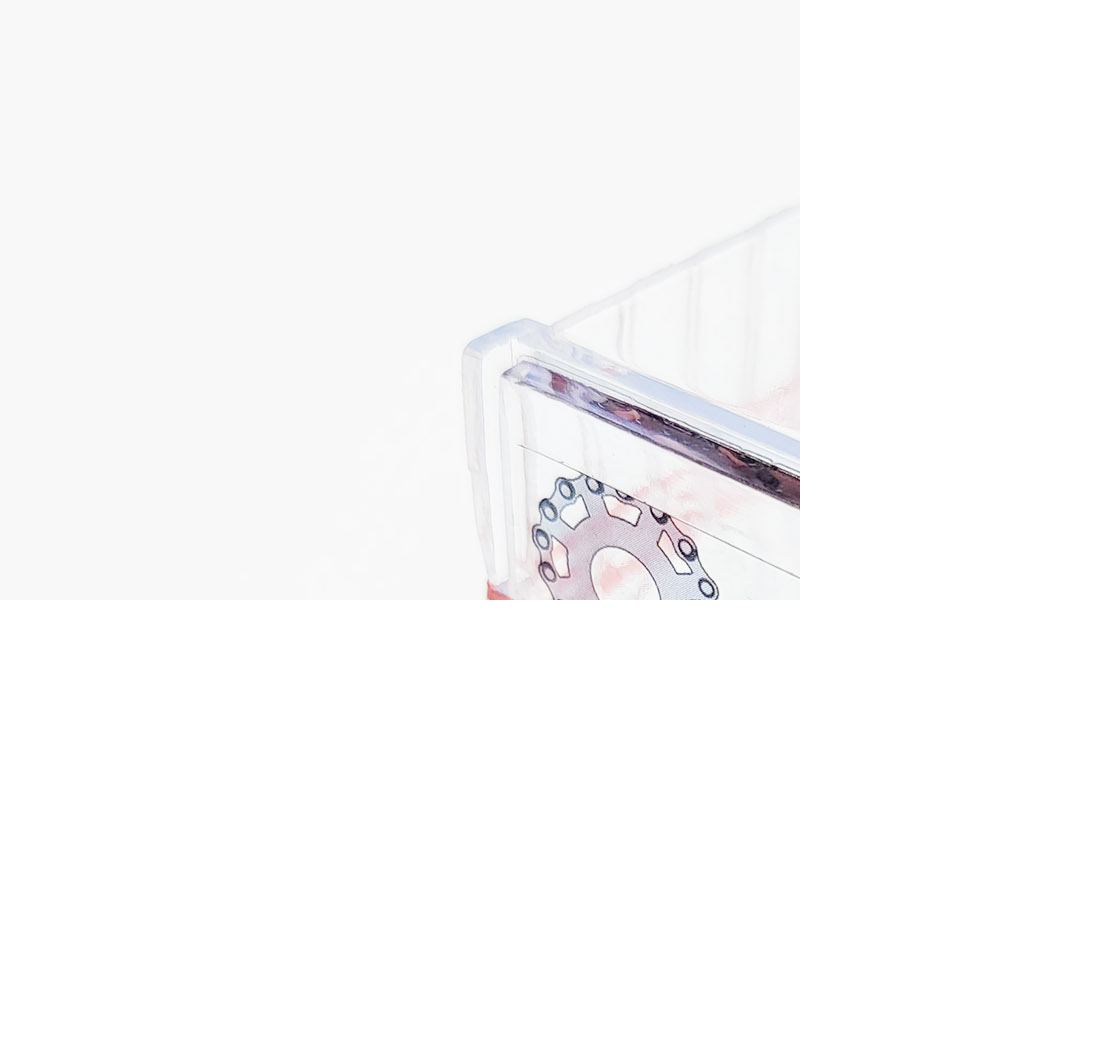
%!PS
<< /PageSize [1094 1043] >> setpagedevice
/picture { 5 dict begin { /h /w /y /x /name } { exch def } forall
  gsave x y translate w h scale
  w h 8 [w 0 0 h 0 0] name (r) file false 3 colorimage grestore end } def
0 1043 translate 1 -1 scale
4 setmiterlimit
1 setgray
0 0 1094 1043 rectfill
(img1.rgb) 0 0 800 600 picture
showpage
